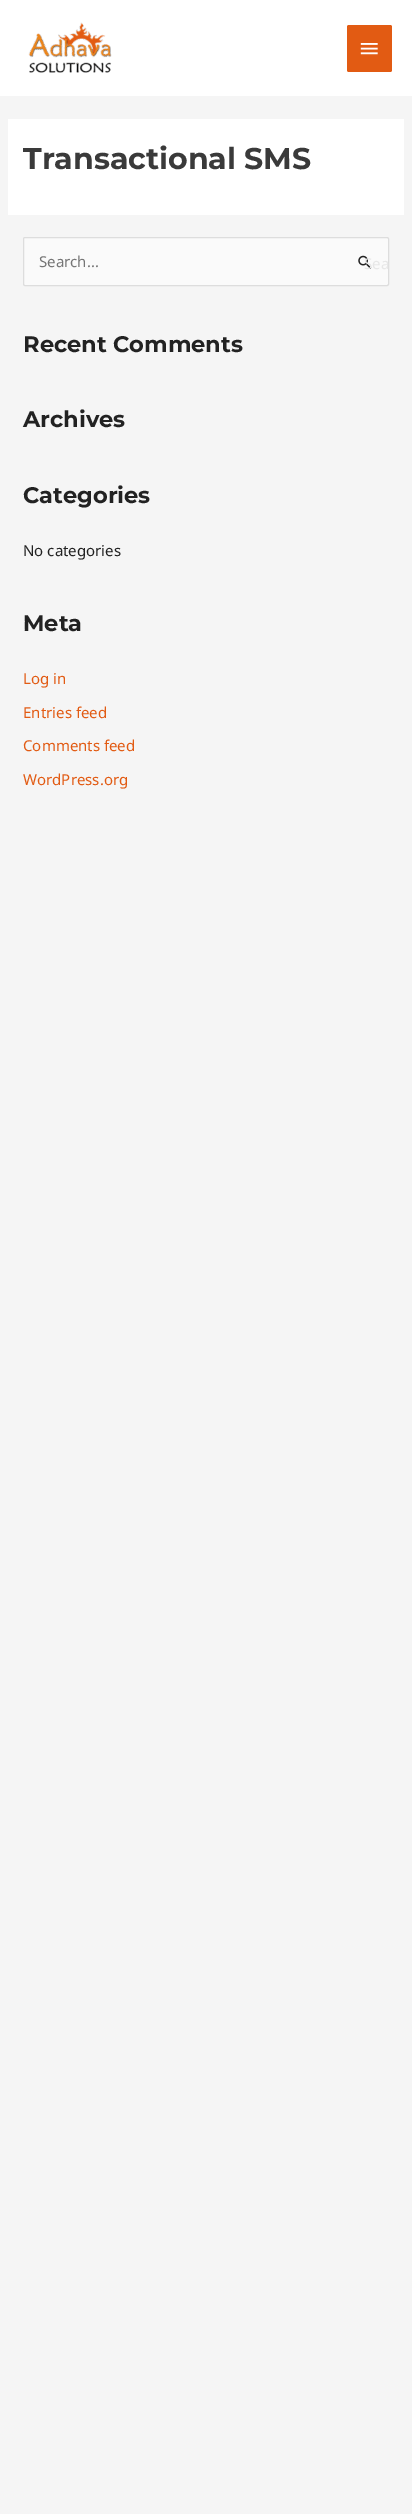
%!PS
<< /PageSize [412 2514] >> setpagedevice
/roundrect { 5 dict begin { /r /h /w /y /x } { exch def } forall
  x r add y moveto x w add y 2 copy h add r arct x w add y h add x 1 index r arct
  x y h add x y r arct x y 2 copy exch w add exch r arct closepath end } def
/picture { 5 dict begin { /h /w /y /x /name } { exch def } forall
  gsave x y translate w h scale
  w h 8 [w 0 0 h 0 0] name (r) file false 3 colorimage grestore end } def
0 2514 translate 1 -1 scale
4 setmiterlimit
0.961 setgray
0 0 412 2514 rectfill
1 setgray
0 0 412 96 rectfill
(img1.rgb) 28 22 84 51 picture
0.886 0.357 0.075 setrgbcolor
347 25 45 47 2 roundrect fill
(img2.rgb) 360 43 18 12 picture
1 setgray
8 119 396 96 rectfill
/Montserrat-Thin [30 0 0 -30 0 0] selectfont
0.227 setgray
23 169 moveto (Transactional SMS) show
0.98 setgray
23.5 237.5 365 48 1.5 roundrect gsave fill grestore
0.867 setgray
stroke
/NotoSans-Regular [15 0 0 -15 0 0] selectfont
0.459 setgray
39 267 moveto (Search...) show
(img3.rgb) 358 255 14 14 picture
0.906 setgray
364 269 moveto (Sea) show
/Montserrat-Thin [22.5 0 0 -22.5 0 0] selectfont
0.133 setgray
23 352 moveto (Recent Comments) show
23 427 moveto (Archives) show
23 503 moveto (Categories) show
/NotoSans-Regular [15 0 0 -15 0 0] selectfont
23 556 moveto (No categories) show
/Montserrat-Thin [22.5 0 0 -22.5 0 0] selectfont
23 631 moveto (Meta) show
/NotoSans-Regular [15 0 0 -15 0 0] selectfont
0.886 0.357 0.075 setrgbcolor
23 684 moveto (Log in) show
23 718 moveto (Entries feed) show
23 751 moveto (Comments feed) show
23 785 moveto (WordPress.org) show
showpage
